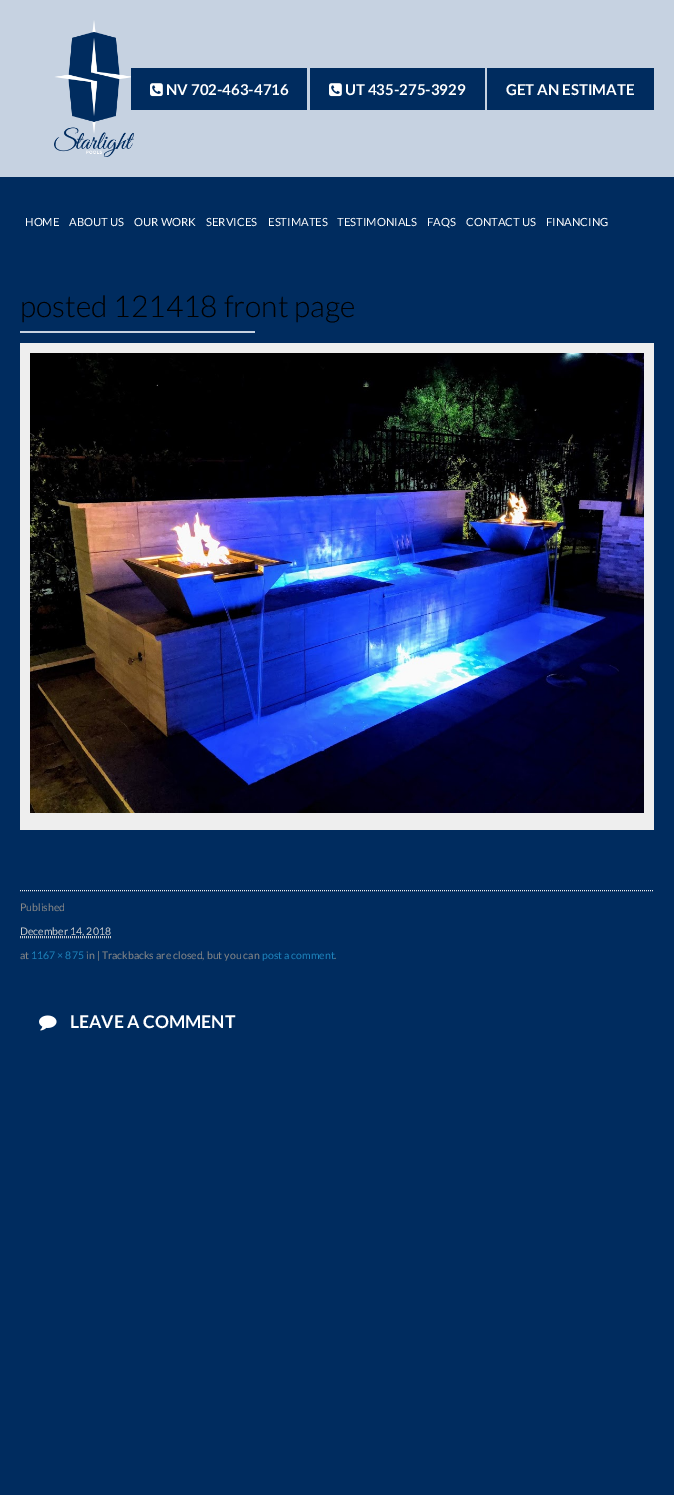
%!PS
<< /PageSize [674 1495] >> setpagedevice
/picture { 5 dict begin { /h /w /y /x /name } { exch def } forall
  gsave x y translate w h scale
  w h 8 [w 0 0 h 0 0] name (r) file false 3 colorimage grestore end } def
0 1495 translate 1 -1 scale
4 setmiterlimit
0 0.173 0.373 setrgbcolor
0 0 674 1495 rectfill
0.776 0.824 0.882 setrgbcolor
0 0 674 177 rectfill
(img1.rgb) 54 20 80 137 picture
0 0.173 0.373 setrgbcolor
131 68 176 42 rectfill
(img2.rgb) 150 83 13 14 picture
/Lato-Bold [15 0 0 -15 0 0] selectfont
1 setgray
166 95 moveto (NV 702-463-4716) show
0 0.173 0.373 setrgbcolor
310 68 175 42 rectfill
(img2.rgb) 329 83 13 14 picture
1 setgray
345 95 moveto (UT 435-275-3929) show
0 0.173 0.373 setrgbcolor
487 68 167 42 rectfill
1 setgray
506 95 moveto (GET AN ESTIMATE) show
/Lato-Regular [11.25 0 0 -11.25 0 0] selectfont
25 226 moveto (HOME) show
69 226 moveto (ABOUT US) show
134 226 moveto (OUR WORK) show
206 226 moveto (SERVICES) show
268 226 moveto (ESTIMATES) show
337 226 moveto (TESTIMONIALS) show
427 226 moveto (FAQS) show
466 226 moveto (CONTACT US) show
546 226 moveto (FINANCING) show
/Lato-Light [30 0 0 -30 0 0] selectfont
0 setgray
20 317 moveto (posted 121418 front page) show
0.776 0.824 0.882 setrgbcolor
20 331 235 2 rectfill
0.933 setgray
20 343 634 487 rectfill
(img3.rgb) 30 353 614 460 picture
[1 1] 0 setdash
newpath 20 890.5 moveto 654 890.5 lineto stroke
/Lato-Regular [10.5 0 0 -10.5 0 0] selectfont
0.533 setgray
20 911 moveto (Published) show
0.8 setgray
newpath 20 936.5 moveto 111 936.5 lineto stroke
20 935 moveto (December 14, 2018) show
newpath 20 937.5 moveto 111 937.5 lineto stroke
0.533 setgray
20 959 moveto (at) show
0.118 0.522 0.745 setrgbcolor
31 959 moveto (1167 × 875) show
0.533 setgray
86 959 moveto (in | Trackbacks are closed, but you can) show
0.118 0.522 0.745 setrgbcolor
262 959 moveto (post a comment) show
0.533 setgray
334 959 moveto (.) show
(img4.rgb) 39 1015 18 16 picture
/Lato-Bold [17.5 0 0 -17.5 0 0] selectfont
1 setgray
70 1028 moveto (LEAVE A COMMENT) show
showpage
